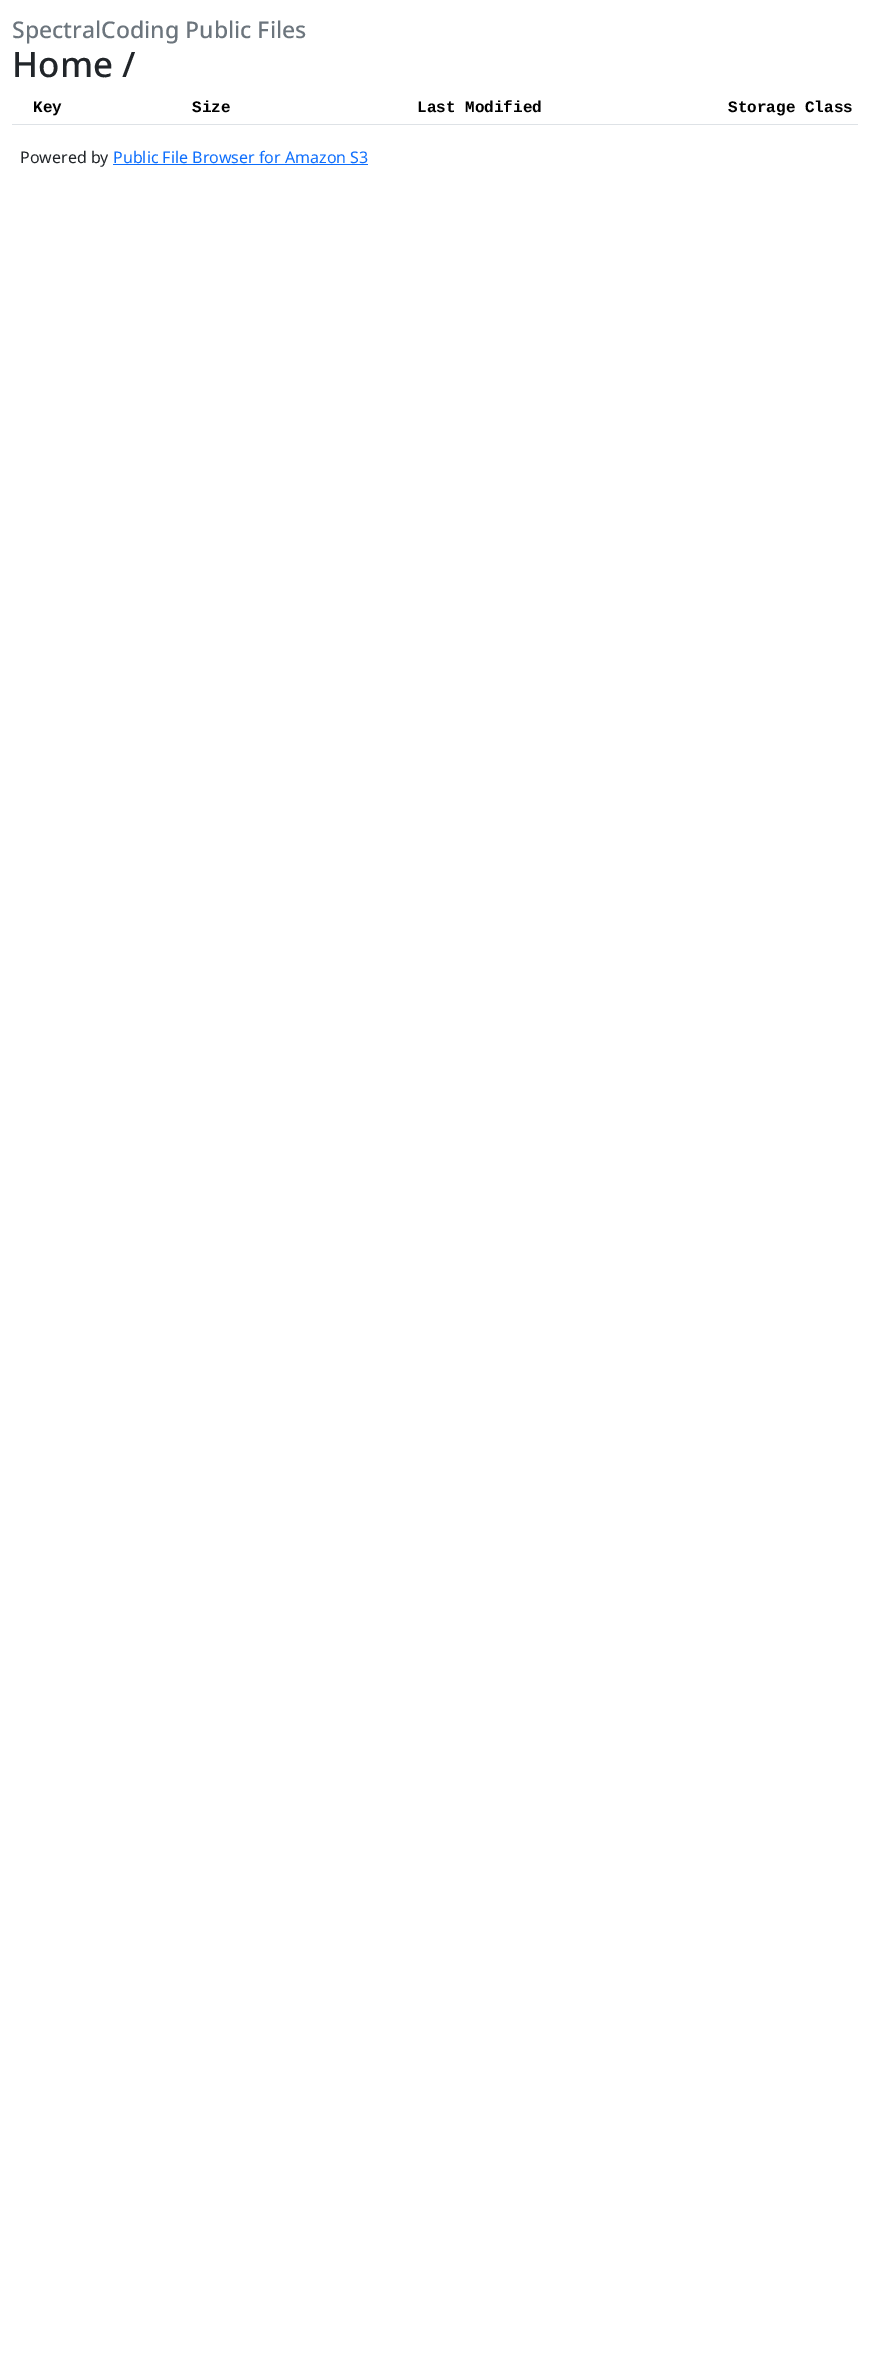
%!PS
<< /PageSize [869 2362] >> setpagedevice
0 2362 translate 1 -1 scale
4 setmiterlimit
1 setgray
0 0 869 2362 rectfill
/NotoSans-Medium [23 0 0 -23 0 0] selectfont
0.424 0.459 0.49 setrgbcolor
12 38 moveto (SpectralCoding Public Files) show
/NotoSans-Medium [35 0 0 -35 0 0] selectfont
0.129 0.145 0.161 setrgbcolor
12 77 moveto (Home /) show
/LiberationMono-Bold [16 0 0 -16 0 0] selectfont
0 setgray
33 112 moveto (Key) show
192 112 moveto (Size) show
417 112 moveto (Last Modified) show
0.871 0.886 0.902 setrgbcolor
12 124 846 1 rectfill
0 setgray
728 112 moveto (Storage Class) show
/NotoSans-Regular [16 0 0 -16 0 0] selectfont
0.129 0.145 0.161 setrgbcolor
20 163 moveto (Powered by) show
0.051 0.431 0.992 setrgbcolor
113 163 moveto (Public File Browser for Amazon S3) show
113 164 255 1 rectfill
showpage
